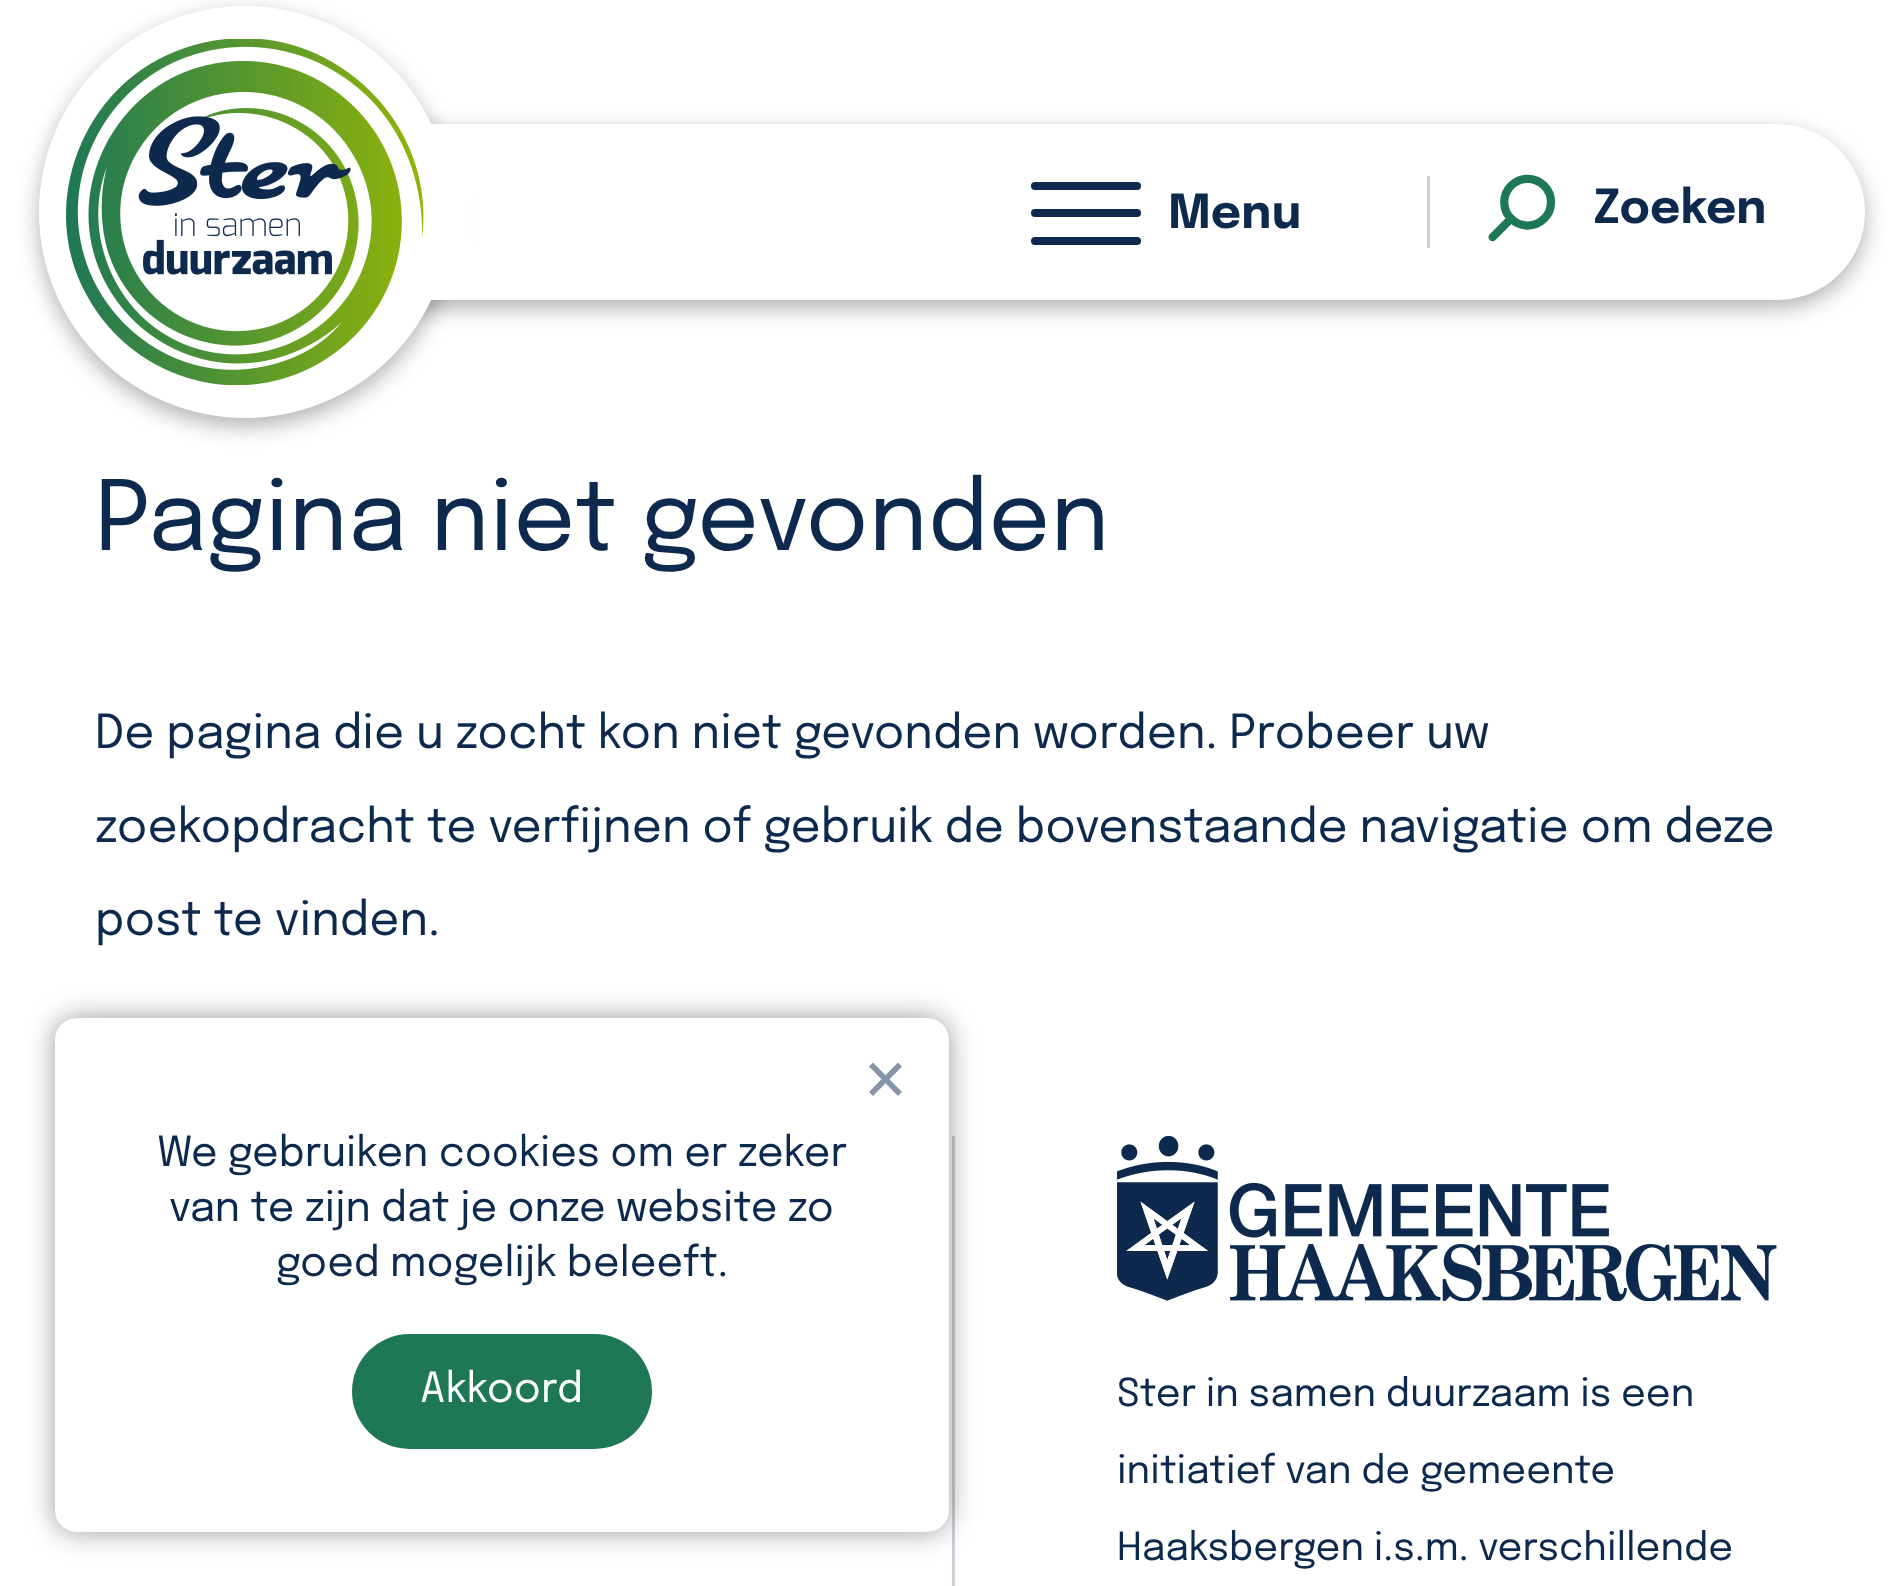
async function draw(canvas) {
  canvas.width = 1902
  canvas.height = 1586
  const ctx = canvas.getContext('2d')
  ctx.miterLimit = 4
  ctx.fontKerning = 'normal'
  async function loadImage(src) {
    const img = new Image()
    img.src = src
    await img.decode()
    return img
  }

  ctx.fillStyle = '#fff'
  ctx.fillRect(0, 0, 1902, 1586)
  ctx.fillStyle = '#0000004d'
  ctx.filter = 'blur(11px)'
  ctx.beginPath()
  ctx.roundRect(176, 132, 1689, 176, 88)
  ctx.fill()
  ctx.filter = 'none'
  ctx.fillStyle = '#fff'
  ctx.beginPath()
  ctx.roundRect(176, 124, 1689, 176, 88)
  ctx.fill()
  ctx.fillStyle = '#0000004d'
  ctx.filter = 'blur(11px)'
  ctx.beginPath()
  ctx.roundRect(39, 14, 412, 412, 206)
  ctx.fill()
  ctx.filter = 'none'
  ctx.fillStyle = '#fff'
  ctx.beginPath()
  ctx.arc(245, 212, 206, 0, 2 * Math.PI)
  ctx.fill()
  ctx.drawImage(await loadImage('image0.png'), 66, 39, 358, 346)
  ctx.fillRect(431, 124, 40, 176)
  ctx.fillStyle = '#0d294e'
  ctx.beginPath()
  ctx.roundRect(1031, 237, 110, 8, 4)
  ctx.fill()
  ctx.beginPath()
  ctx.roundRect(1031, 182, 110, 8, 4)
  ctx.fill()
  ctx.beginPath()
  ctx.roundRect(1031, 209, 110, 8, 4)
  ctx.fill()
  ctx.font = 'bold 46.75px Epilogue'
  ctx.fillText('Menu', 1168, 228)
  ctx.fillStyle = '#cad0d8'
  ctx.fillRect(1427, 176, 3, 72)
  ctx.drawImage(await loadImage('image1.png'), 1488, 174, 68, 68)
  ctx.fillStyle = '#0d294e'
  ctx.fillText('Zoeken', 1593, 223)
  ctx.font = '96.25px Epilogue'
  ctx.fillText('Pagina niet gevonden', 95, 550)
  ctx.font = '46.75px Epilogue'
  ctx.fillText('De pagina die u zocht kon niet gevonden worden. Probeer uw', 95, 748)
  ctx.fillText('zoekopdracht te verfijnen of gebruik de bovenstaande navigatie om deze', 95, 842)
  ctx.fillText('post te vinden.', 95, 935)
  ctx.fillStyle = '#cad0d8'
  ctx.fillRect(952, 1136, 3, 450)
  ctx.drawImage(await loadImage('image2.png'), 1117, 1136, 660, 165)
  ctx.font = '38.5px Epilogue'
  ctx.fillStyle = '#0d294e'
  ctx.fillText('Ster in samen duurzaam is een', 1117, 1406)
  ctx.fillText('initiatief van de gemeente', 1117, 1483)
  ctx.fillText('Haaksbergen i.s.m. verschillende', 1117, 1560)
  ctx.fillStyle = '#00000066'
  ctx.filter = 'blur(14px)'
  ctx.beginPath()
  ctx.roundRect(55, 1018, 894, 514, 22)
  ctx.fill()
  ctx.filter = 'none'
  ctx.fillStyle = '#fff'
  ctx.beginPath()
  ctx.roundRect(55, 1018, 894, 514, 22)
  ctx.fill()
  ctx.fillStyle = '#8694a7'
  ctx.beginPath()
  ctx.moveTo(898, 1062.5)
  ctx.lineTo(902, 1066.5)
  ctx.lineTo(873, 1096)
  ctx.lineTo(869, 1092)
  ctx.closePath()
  ctx.fill()
  ctx.beginPath()
  ctx.moveTo(869, 1066.5)
  ctx.lineTo(873, 1062.5)
  ctx.lineTo(902, 1092)
  ctx.lineTo(898, 1096)
  ctx.closePath()
  ctx.fill()
  ctx.font = '41.25px Epilogue'
  ctx.fillStyle = '#0d294e'
  ctx.fillText('We gebruiken cookies om er zeker', 157, 1166)
  ctx.fillText('van te zijn dat je onze website zo', 169, 1221)
  ctx.fillText('goed mogelijk beleeft.', 276, 1276)
  ctx.fillStyle = '#1e7855'
  ctx.beginPath()
  ctx.roundRect(352, 1334, 300, 115, 57.5)
  ctx.fill()
  ctx.fillStyle = '#fff'
  ctx.fillText('Akkoord', 420, 1402)
}

draw(document.querySelector('canvas'))
